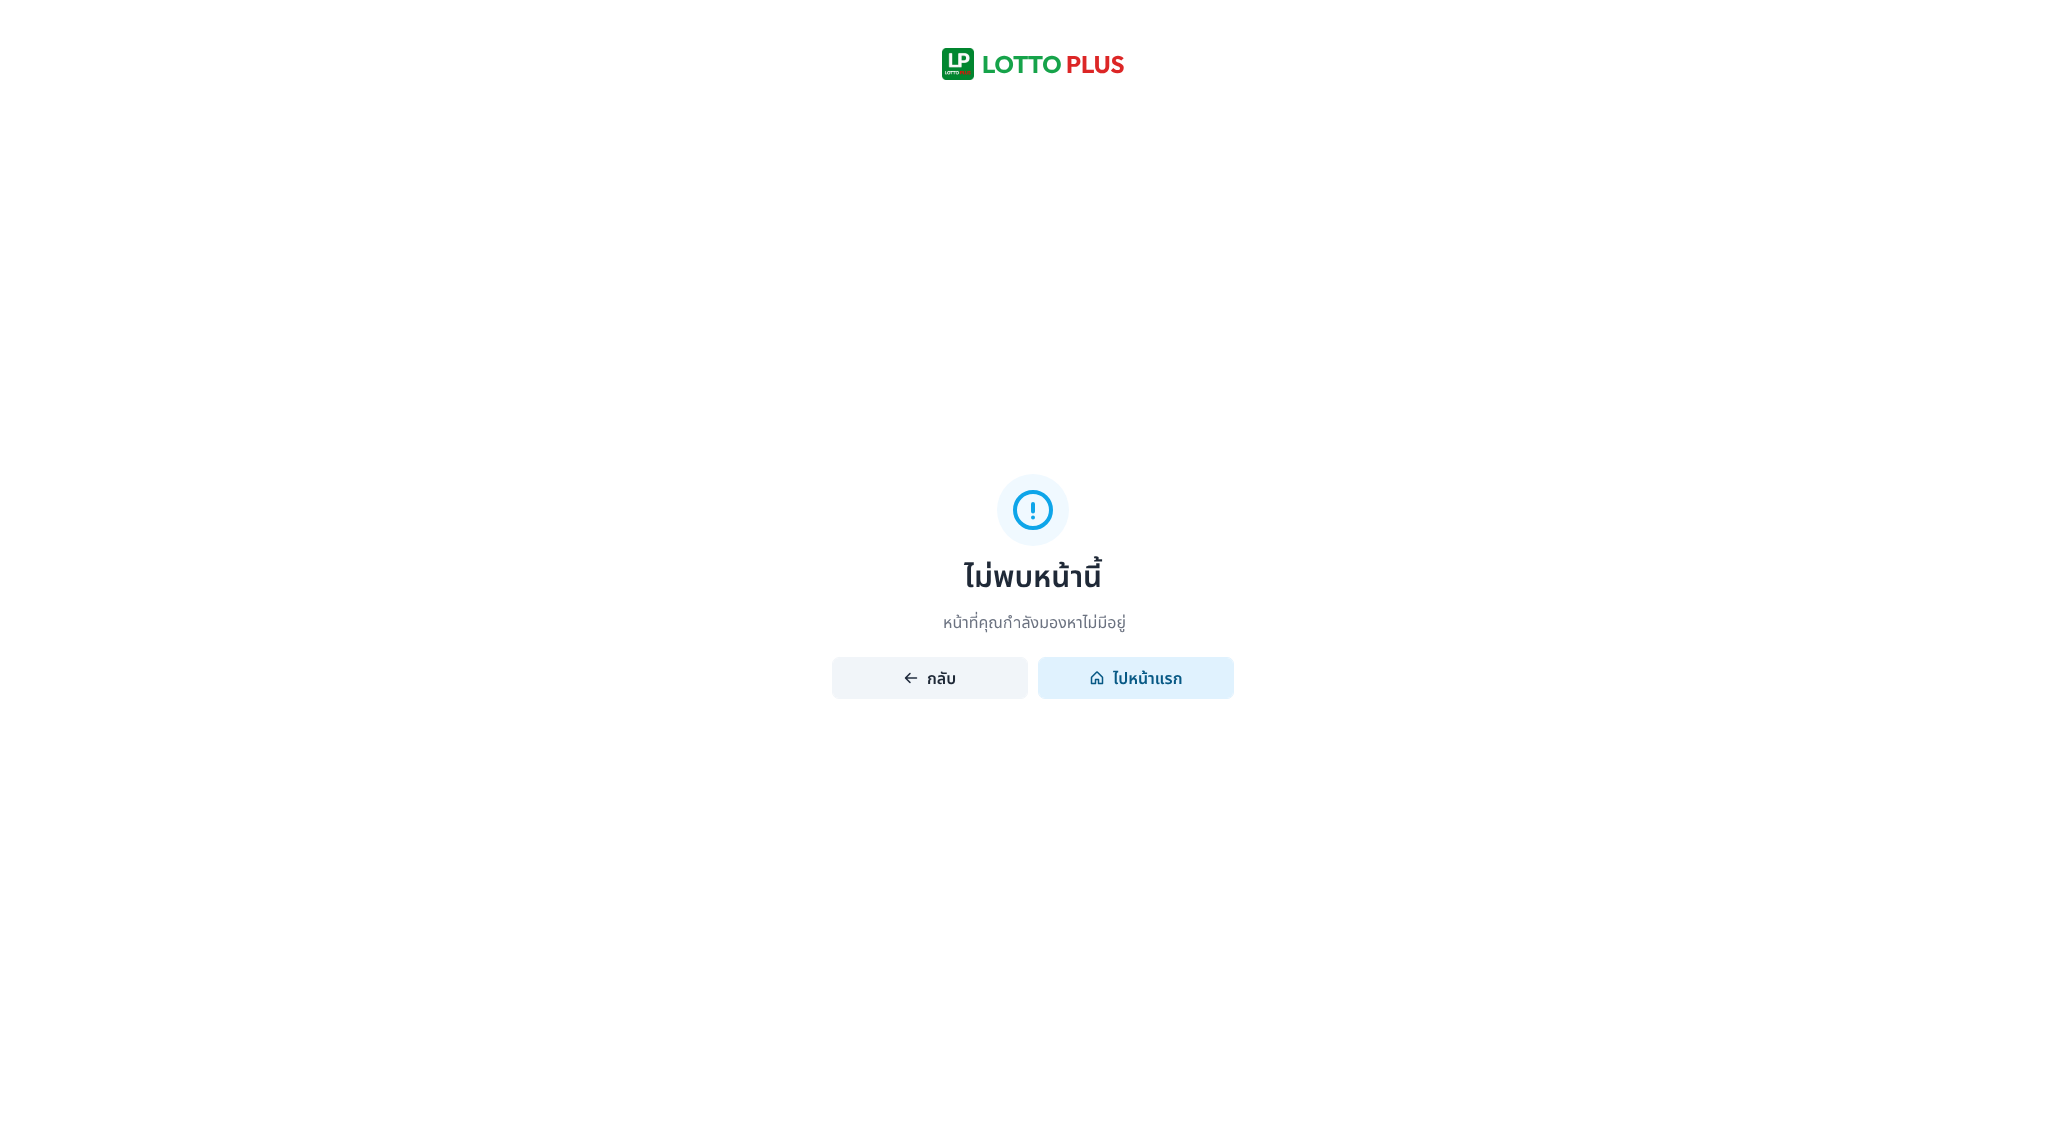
async function draw(canvas) {
  canvas.width = 2066
  canvas.height = 1140
  const ctx = canvas.getContext('2d')
  ctx.miterLimit = 4
  ctx.fontKerning = 'normal'
  async function loadImage(src) {
    const img = new Image()
    img.src = src
    await img.decode()
    return img
  }

  ctx.fillStyle = '#fff'
  ctx.fillRect(0, 0, 2066, 1140)
  ctx.drawImage(await loadImage('image0.png'), 942, 48, 32, 32)
  ctx.font = 'bold 24px Outfit'
  ctx.fillStyle = '#16a34a'
  ctx.fillText('LOTTO', 982, 73)
  ctx.fillStyle = '#dc2626'
  ctx.fillText('PLUS', 1066, 73)
  ctx.fillStyle = '#f0f9ff'
  ctx.beginPath()
  ctx.arc(1033, 510, 36, 0, 2 * Math.PI)
  ctx.fill()
  ctx.beginPath()
  ctx.moveTo(1033, 504)
  ctx.lineTo(1033, 511.5)
  ctx.moveTo(1051, 510)
  ctx.bezierCurveTo(1051, 520, 1043, 528, 1033, 528)
  ctx.bezierCurveTo(1023, 528, 1015, 520, 1015, 510)
  ctx.bezierCurveTo(1015, 500, 1023, 492, 1033, 492)
  ctx.bezierCurveTo(1043, 492, 1051, 500, 1051, 510)
  ctx.closePath()
  ctx.moveTo(1033, 517.5)
  ctx.lineTo(1033, 517.5)
  ctx.closePath()
  ctx.strokeStyle = '#0ea5e9'
  ctx.lineWidth = 4
  ctx.lineCap = 'round'
  ctx.lineJoin = 'round'
  ctx.stroke()
  ctx.font = '600 30px Noto Sans Thai'
  ctx.fillStyle = '#1f2937'
  ctx.fillText('ไม่พบหน้านี้', 964, 587)
  ctx.font = '16px Noto Sans Thai'
  ctx.fillStyle = '#6b7280'
  ctx.fillText('หน้าที่คุณกำลังมองหาไม่มีอยู่', 943, 628)
  ctx.beginPath()
  ctx.roundRect(832.5, 657.5, 195, 41, 6.5)
  ctx.strokeStyle = '#f1f5f9'
  ctx.lineWidth = 1
  ctx.lineJoin = 'miter'
  ctx.stroke()
  ctx.fillStyle = '#f1f5f9'
  ctx.beginPath()
  ctx.roundRect(833, 658, 194, 40, 6)
  ctx.fill()
  ctx.drawImage(await loadImage('image1.png'), 904, 672, 14, 12)
  ctx.font = '600 16px Noto Sans Thai'
  ctx.fillStyle = '#1f2937'
  ctx.fillText('กลับ', 927, 684)
  ctx.beginPath()
  ctx.roundRect(1038.5, 657.5, 195, 41, 6.5)
  ctx.strokeStyle = '#e0f2fe'
  ctx.stroke()
  ctx.fillStyle = '#e0f2fe'
  ctx.beginPath()
  ctx.roundRect(1039, 658, 194, 40, 6)
  ctx.fill()
  ctx.drawImage(await loadImage('image2.png'), 1090, 671, 14, 14)
  ctx.fillStyle = '#075985'
  ctx.fillText('ไปหน้าแรก', 1113, 684)
}

draw(document.querySelector('canvas'))
